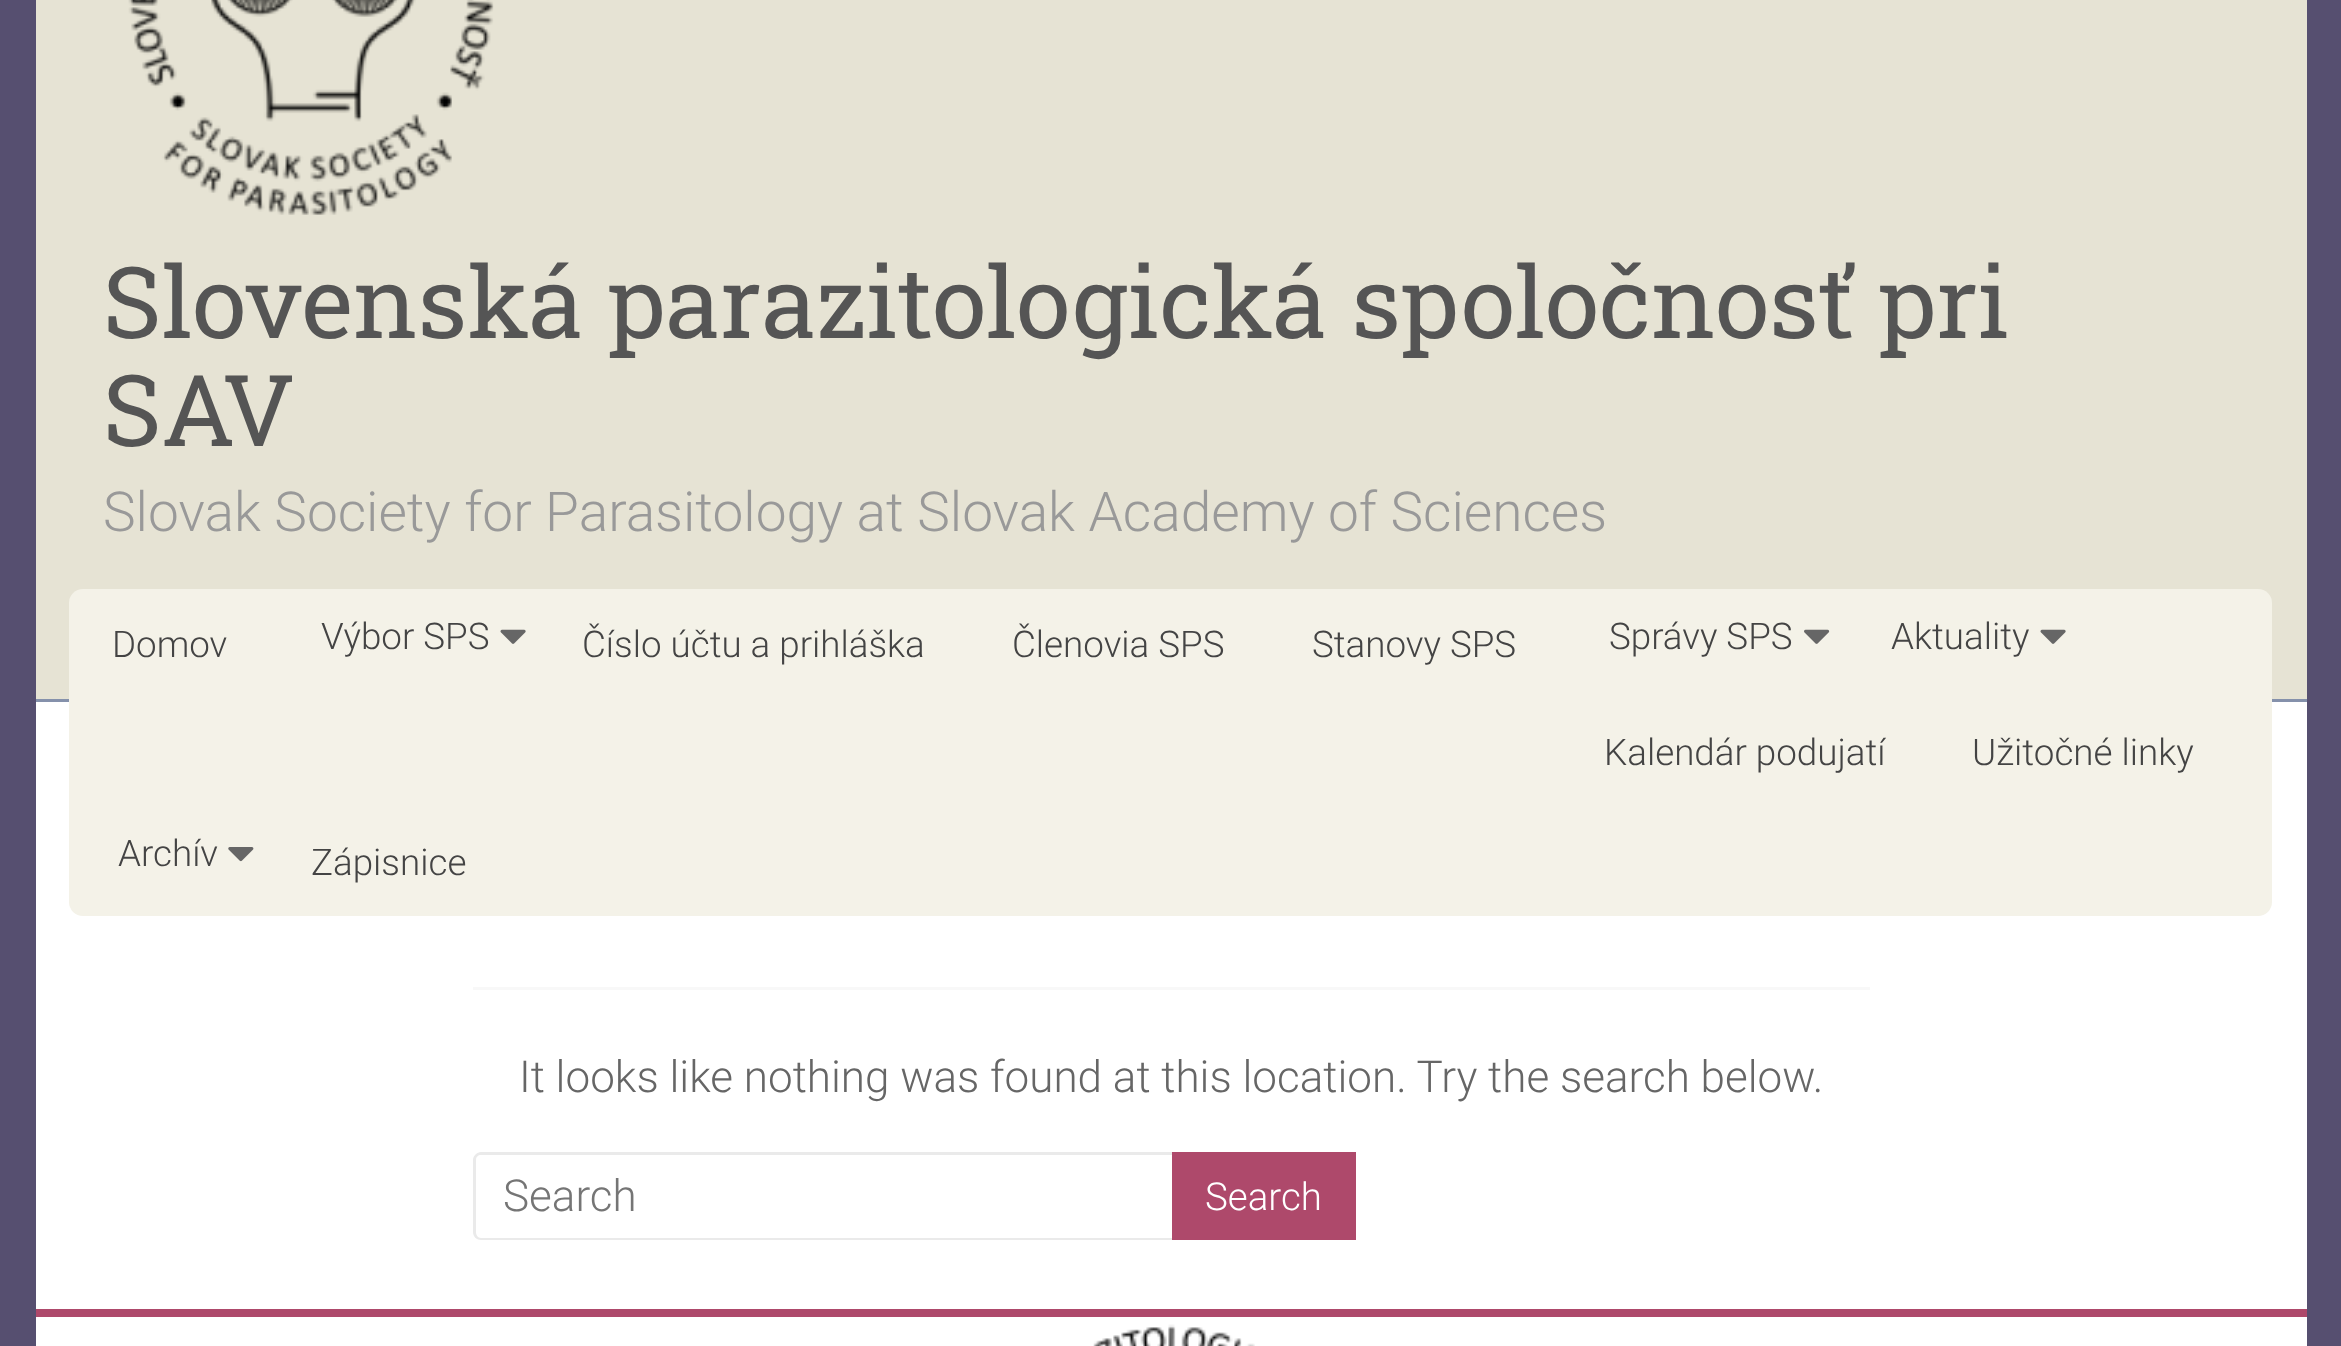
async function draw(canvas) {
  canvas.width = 2341
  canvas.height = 1346
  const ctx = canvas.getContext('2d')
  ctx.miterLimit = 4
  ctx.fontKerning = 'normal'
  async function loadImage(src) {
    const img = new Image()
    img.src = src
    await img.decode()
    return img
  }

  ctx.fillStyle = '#564f70'
  ctx.fillRect(0, 0, 2341, 1346)
  ctx.fillStyle = '#fff'
  ctx.fillRect(36, 702, 2271, 644)
  ctx.fillStyle = '#e6e3d4'
  ctx.fillRect(36, 0, 2271, 699)
  ctx.fillStyle = '#8591ab'
  ctx.fillRect(36, 699, 2271, 3)
  ctx.drawImage(await loadImage('image0.png'), 128, 0, 366, 215)
  ctx.font = '99px Roboto Slab'
  ctx.fillStyle = '#555'
  ctx.fillText('Slovenská parazitologická spoločnosť pri', 103, 338)
  ctx.fillText('SAV', 103, 446)
  ctx.font = '300 55px Roboto'
  ctx.fillStyle = '#999'
  ctx.fillText('Slovak Society for Parasitology at Slovak Academy of Sciences', 103, 531)
  ctx.fillStyle = '#f4f2e8'
  ctx.beginPath()
  ctx.roundRect(69, 589, 2203, 327, 14)
  ctx.fill()
  ctx.font = '300 36.75px Roboto'
  ctx.fillStyle = '#444'
  ctx.fillText('Domov', 112, 657)
  ctx.fillText('Výbor SPS', 321, 649)
  ctx.drawImage(await loadImage('image1.png'), 500, 629, 26, 15)
  ctx.fillText('Číslo účtu a prihláška', 582, 657)
  ctx.fillText('Členovia SPS', 1012, 657)
  ctx.fillText('Stanovy SPS', 1312, 657)
  ctx.fillText('Správy SPS', 1609, 649)
  ctx.drawImage(await loadImage('image2.png'), 1804, 629, 26, 15)
  ctx.fillText('Aktuality', 1891, 649)
  ctx.drawImage(await loadImage('image1.png'), 2040, 629, 26, 15)
  ctx.fillText('Kalendár podujatí', 1604, 765)
  ctx.fillText('Užitočné linky', 1972, 765)
  ctx.fillText('Archív', 118, 866)
  ctx.drawImage(await loadImage('image3.png'), 228, 847, 26, 15)
  ctx.fillText('Zápisnice', 311, 875)
  ctx.fillStyle = '#f8f8f8'
  ctx.fillRect(473, 987, 1397, 3)
  ctx.font = '300 44px Roboto'
  ctx.fillStyle = '#666'
  ctx.fillText('It looks like nothing was found at this location. Try the search below.', 519, 1092)
  ctx.fillStyle = '#eaeaea'
  ctx.beginPath()
  ctx.moveTo(481, 1152)
  ctx.lineTo(1172, 1152)
  ctx.lineTo(1172, 1240)
  ctx.lineTo(481, 1240)
  ctx.bezierCurveTo(477, 1240, 473, 1237, 473, 1232)
  ctx.lineTo(473, 1160)
  ctx.bezierCurveTo(473, 1156, 477, 1152, 481, 1152)
  ctx.closePath()
  ctx.moveTo(481, 1155)
  ctx.lineTo(1172, 1155)
  ctx.lineTo(1172, 1238)
  ctx.lineTo(481, 1238)
  ctx.bezierCurveTo(478, 1238, 476, 1235, 476, 1232)
  ctx.lineTo(476, 1160)
  ctx.bezierCurveTo(476, 1157, 478, 1155, 481, 1155)
  ctx.closePath()
  ctx.fill('evenodd')
  ctx.fillStyle = '#757575'
  ctx.fillText('Search', 503, 1211)
  ctx.fillStyle = '#ae496b'
  ctx.fillRect(1172, 1152, 184, 88)
  ctx.font = '300 38.5px Roboto'
  ctx.fillStyle = '#fff'
  ctx.fillText('Search', 1205, 1210)
  ctx.drawImage(await loadImage('image4.png'), 1093, 1324, 162, 22)
  ctx.fillStyle = '#ae496b'
  ctx.fillRect(36, 1309, 2271, 8)
}

draw(document.querySelector('canvas'))
